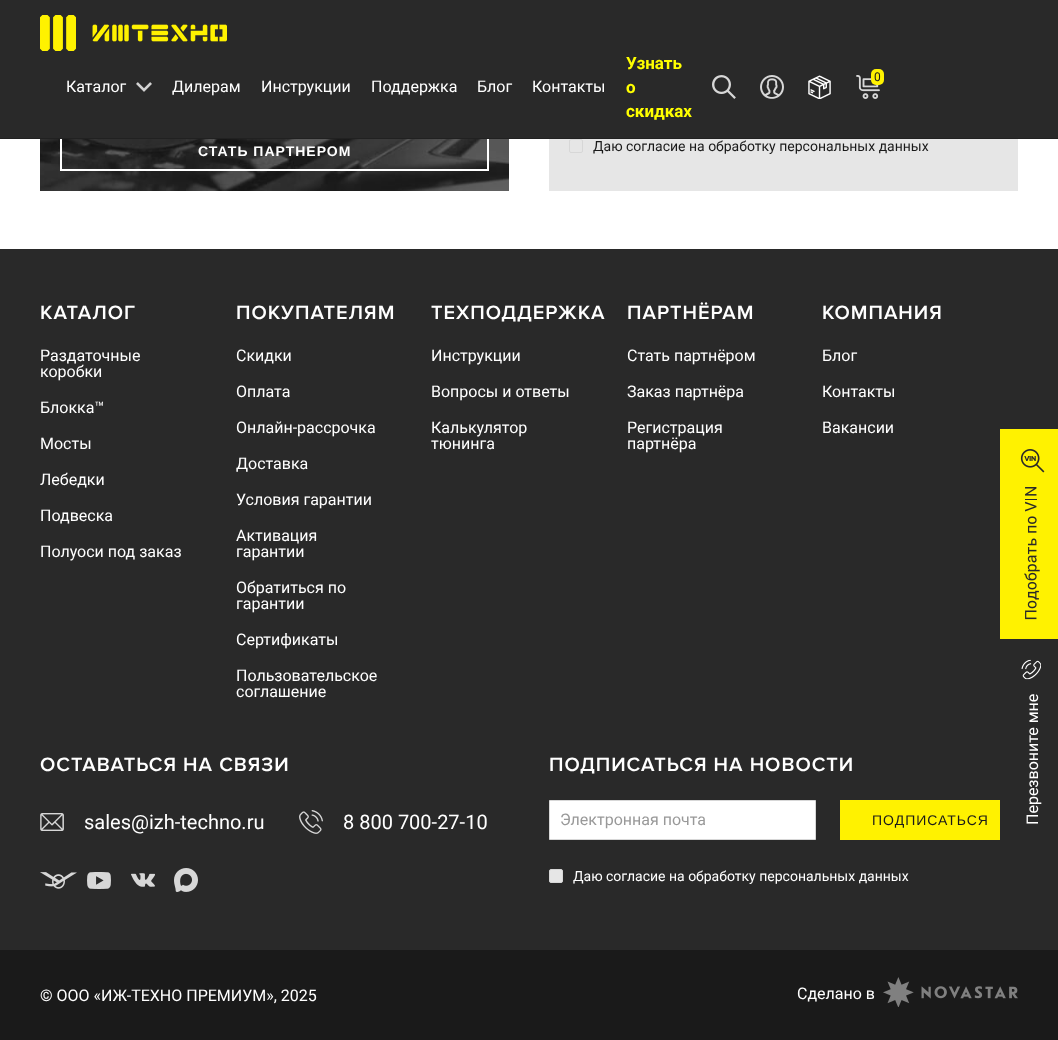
async function draw(canvas) {
  canvas.width = 1058
  canvas.height = 1040
  const ctx = canvas.getContext('2d')
  ctx.miterLimit = 4
  ctx.fontKerning = 'normal'
  async function loadImage(src) {
    const img = new Image()
    img.src = src
    await img.decode()
    return img
  }

  ctx.fillStyle = '#fff'
  ctx.fillRect(0, 0, 1058, 1040)
  ctx.drawImage(await loadImage('image6.png'), 40, 139, 469, 52)
  ctx.strokeStyle = '#fff'
  ctx.lineWidth = 2
  ctx.strokeRect(61, 132, 427, 38)
  ctx.fillStyle = '#292929'
  ctx.fillRect(0, 0, 1058, 138)
  ctx.fillStyle = '#212121'
  ctx.fillRect(0, 138, 1058, 1)
  ctx.drawImage(await loadImage('image0.png'), 40, 15, 187, 36)
  ctx.font = '16px Roboto'
  ctx.fillStyle = '#fff'
  ctx.fillText('Каталог', 66, 92)
  ctx.drawImage(await loadImage('image1.png'), 136, 82, 16, 10)
  ctx.fillText('Дилерам', 172, 92)
  ctx.fillText('Инструкции', 261, 92)
  ctx.fillText('Поддержка', 371, 92)
  ctx.fillText('Блог', 477, 92)
  ctx.fillText('Контакты', 532, 92)
  ctx.font = 'bold 17px Roboto'
  ctx.fillStyle = '#ff0'
  ctx.fillText('Узнать', 626, 69)
  ctx.fillText('о', 626, 93)
  ctx.fillText('скидках', 626, 117)
  ctx.drawImage(await loadImage('image2.png'), 712, 75, 24, 24)
  ctx.drawImage(await loadImage('image3.png'), 760, 75, 24, 24)
  ctx.drawImage(await loadImage('image4.png'), 808, 75, 23, 24)
  ctx.drawImage(await loadImage('image5.png'), 856, 75, 24, 24)
  ctx.fillStyle = '#fff200'
  ctx.beginPath()
  ctx.roundRect(871, 69, 13, 16, 5)
  ctx.fill()
  ctx.font = '12px Roboto'
  ctx.fillStyle = '#1a1a1a'
  ctx.fillText('0', 874, 81)
  ctx.letterSpacing = '1px'
  ctx.font = 'bold 14px Liberation Sans'
  ctx.fillStyle = '#fff'
  ctx.fillText('СТАТЬ ПАРТНЕРОМ', 198, 156)
  ctx.fillStyle = '#e6e6e6'
  ctx.fillRect(549, 139, 469, 52)
  ctx.beginPath()
  ctx.roundRect(569.5, 139.5, 13, 13, 1.5)
  ctx.strokeStyle = '#d7d7d7'
  ctx.lineWidth = 1
  ctx.stroke()
  ctx.letterSpacing = '0px'
  ctx.font = '14px Roboto'
  ctx.fillStyle = '#1a1a1a'
  ctx.fillText('Даю согласие на обработку персональных данных', 593, 151)
  ctx.fillStyle = '#292929'
  ctx.fillRect(0, 249, 1058, 701)
  ctx.letterSpacing = '1px'
  ctx.font = '600 20px Proxima Nova'
  ctx.fillStyle = '#fff'
  ctx.fillText('КАТАЛОГ', 40, 319)
  ctx.letterSpacing = '0px'
  ctx.font = '16px Roboto'
  ctx.fillText('Раздаточные', 40, 361)
  ctx.fillText('коробки', 40, 377)
  ctx.fillText('Блокка™', 40, 413)
  ctx.fillText('Мосты', 40, 449)
  ctx.fillText('Лебедки', 40, 485)
  ctx.fillText('Подвеска', 40, 521)
  ctx.fillText('Полуоси под заказ', 40, 557)
  ctx.letterSpacing = '1px'
  ctx.font = '600 20px Proxima Nova'
  ctx.fillText('ПОКУПАТЕЛЯМ', 236, 319)
  ctx.letterSpacing = '0px'
  ctx.font = '16px Roboto'
  ctx.fillText('Скидки', 236, 361)
  ctx.fillText('Оплата', 236, 397)
  ctx.fillText('Онлайн-рассрочка', 236, 433)
  ctx.fillText('Доставка', 236, 469)
  ctx.fillText('Условия гарантии', 236, 505)
  ctx.fillText('Активация', 236, 541)
  ctx.fillText('гарантии', 236, 557)
  ctx.fillText('Обратиться по', 236, 593)
  ctx.fillText('гарантии', 236, 609)
  ctx.fillText('Сертификаты', 236, 645)
  ctx.fillText('Пользовательское', 236, 681)
  ctx.fillText('соглашение', 236, 697)
  ctx.letterSpacing = '1px'
  ctx.font = '600 20px Proxima Nova'
  ctx.fillText('ТЕХПОДДЕРЖКА', 431, 319)
  ctx.letterSpacing = '0px'
  ctx.font = '16px Roboto'
  ctx.fillText('Инструкции', 431, 361)
  ctx.fillText('Вопросы и ответы', 431, 397)
  ctx.fillText('Калькулятор', 431, 433)
  ctx.fillText('тюнинга', 431, 449)
  ctx.letterSpacing = '1px'
  ctx.font = '600 20px Proxima Nova'
  ctx.fillText('ПАРТНЁРАМ', 627, 319)
  ctx.letterSpacing = '0px'
  ctx.font = '16px Roboto'
  ctx.fillText('Стать партнёром', 627, 361)
  ctx.fillText('Заказ партнёра', 627, 397)
  ctx.fillText('Регистрация', 627, 433)
  ctx.fillText('партнёра', 627, 449)
  ctx.letterSpacing = '1px'
  ctx.font = '600 20px Proxima Nova'
  ctx.fillText('КОМПАНИЯ', 822, 319)
  ctx.letterSpacing = '0px'
  ctx.font = '16px Roboto'
  ctx.fillText('Блог', 822, 361)
  ctx.fillText('Контакты', 822, 397)
  ctx.fillText('Вакансии', 822, 433)
  ctx.letterSpacing = '1px'
  ctx.font = '600 20px Proxima Nova'
  ctx.fillText('ОСТАВАТЬСЯ НА СВЯЗИ', 40, 771)
  ctx.drawImage(await loadImage('image7.png'), 40, 813, 24, 18)
  ctx.letterSpacing = '0px'
  ctx.font = '20px Roboto'
  ctx.fillText('sales@izh-techno.ru', 84, 829)
  ctx.drawImage(await loadImage('image8.png'), 299, 810, 24, 24)
  ctx.fillText('8 800 700-27-10', 343, 829)
  ctx.drawImage(await loadImage('image9.png'), 40, 872, 37, 17)
  ctx.drawImage(await loadImage('image10.png'), 87, 872, 24, 17)
  ctx.drawImage(await loadImage('image11.png'), 131, 873, 24, 14)
  ctx.drawImage(await loadImage('image12.png'), 174, 868, 24, 24)
  ctx.letterSpacing = '1px'
  ctx.font = '600 20px Proxima Nova'
  ctx.fillText('ПОДПИСАТЬСЯ НА НОВОСТИ', 549, 771)
  ctx.beginPath()
  ctx.rect(549.5, 800.5, 266, 39)
  ctx.fill()
  ctx.stroke()
  ctx.letterSpacing = '0px'
  ctx.font = '16px Roboto'
  ctx.fillStyle = '#999'
  ctx.fillText('Электронная почта', 560, 825)
  ctx.fillStyle = '#fff200'
  ctx.fillRect(840, 800, 160, 40)
  ctx.letterSpacing = '1px'
  ctx.font = '14px Liberation Sans'
  ctx.fillStyle = '#1a1a1a'
  ctx.fillText('ПОДПИСАТЬСЯ', 872, 825)
  ctx.fillStyle = '#e6e6e6'
  ctx.beginPath()
  ctx.roundRect(549.5, 869.5, 13, 13, 1.5)
  ctx.fill()
  ctx.stroke()
  ctx.letterSpacing = '0px'
  ctx.font = '14px Roboto'
  ctx.fillStyle = '#fff'
  ctx.fillText('Даю согласие на обработку персональных данных', 573, 881)
  ctx.fillStyle = '#1a1a1a'
  ctx.fillRect(0, 950, 1058, 90)
  ctx.font = '16px Roboto'
  ctx.fillStyle = '#fff'
  ctx.fillText('© ООО «ИЖ-ТЕХНО ПРЕМИУМ», 2025', 40, 1001)
  ctx.fillText('Сделано в', 797, 999)
  ctx.drawImage(await loadImage('image13.png'), 883, 977, 135, 30)
  ctx.drawImage(await loadImage('image14.png'), 1000, 429, 58, 210)
  ctx.drawImage(await loadImage('image15.png'), 1021, 659, 20, 21)
  ctx.save()
  ctx.translate(1038, 825)
  ctx.rotate(-90 * Math.PI / 180)
  ctx.fillText('Перезвоните мне', 0, 0)
  ctx.restore()
}

draw(document.querySelector('canvas'))
